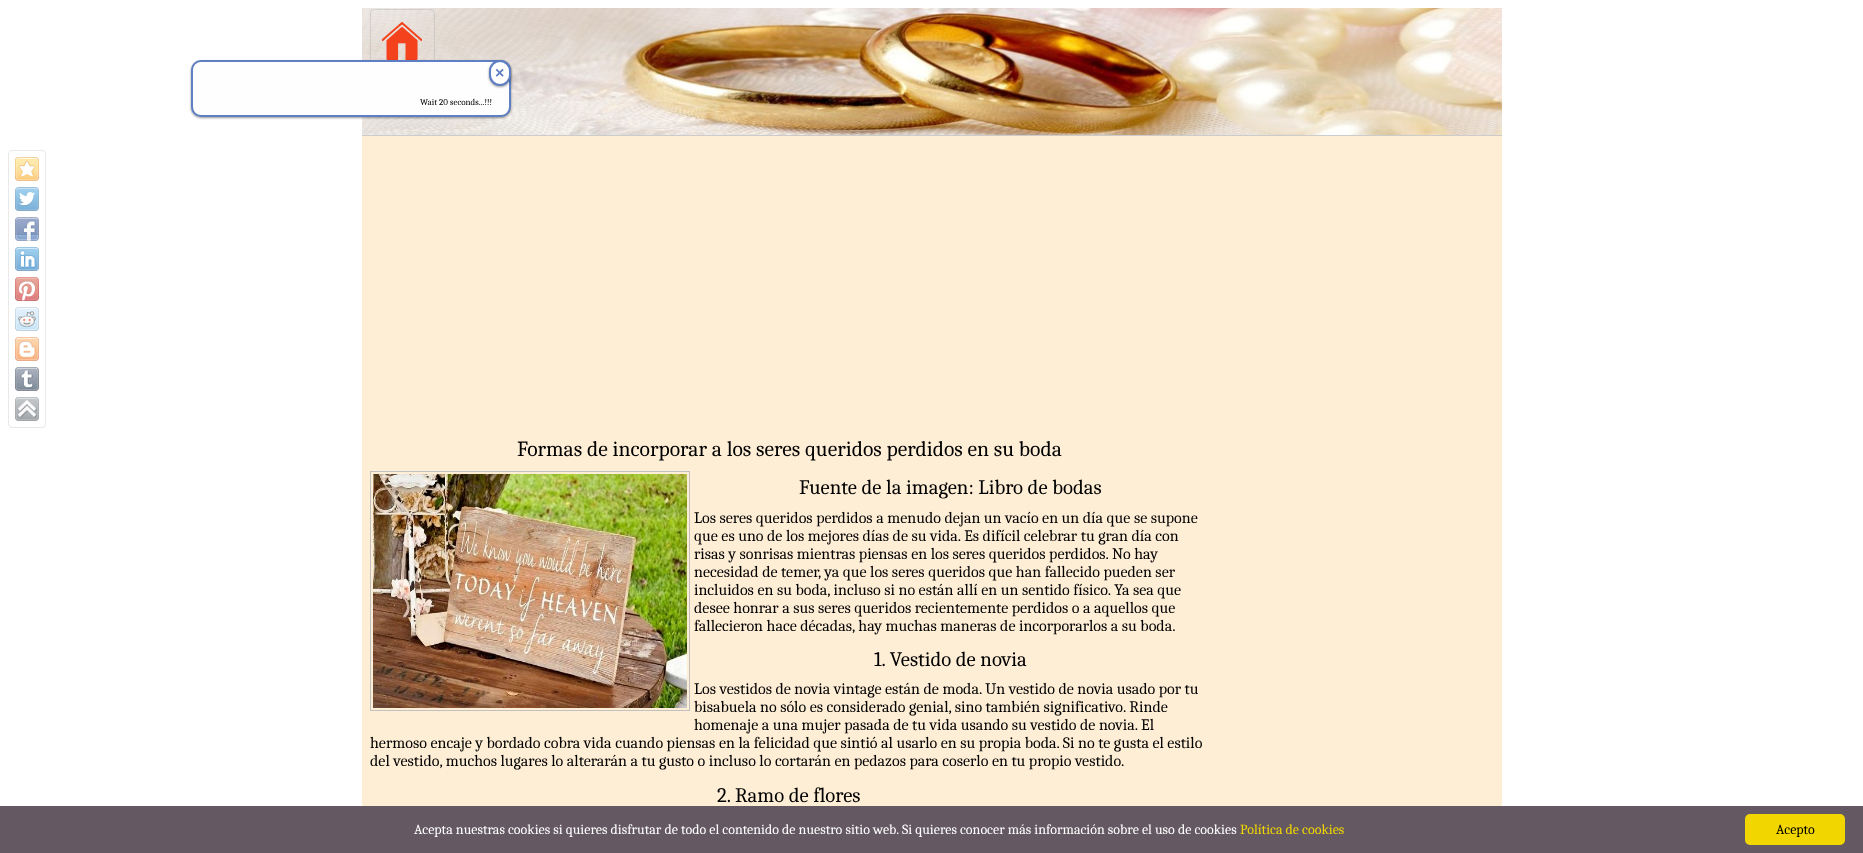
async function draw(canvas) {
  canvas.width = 1863
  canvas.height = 853
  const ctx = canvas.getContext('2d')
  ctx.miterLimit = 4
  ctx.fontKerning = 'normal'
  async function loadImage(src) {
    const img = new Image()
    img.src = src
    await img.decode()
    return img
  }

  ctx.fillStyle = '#fff'
  ctx.fillRect(0, 0, 1863, 853)
  ctx.drawImage(await loadImage('image9.png'), 362, 8, 1140, 127)
  ctx.beginPath()
  ctx.roundRect(370.5, 9.5, 64, 68, 3.5)
  ctx.strokeStyle = '#9e9e9e4d'
  ctx.stroke()
  ctx.drawImage(await loadImage('image10.png'), 382, 22, 40, 38)
  ctx.fillStyle = '#00000066'
  ctx.filter = 'blur(1px)'
  ctx.beginPath()
  ctx.roundRect(191, 61, 320, 57, 10)
  ctx.fill()
  ctx.filter = 'none'
  ctx.fillStyle = '#fefefe'
  ctx.beginPath()
  ctx.roundRect(192, 61, 318, 55, 9)
  ctx.fill()
  ctx.strokeStyle = '#5e7fc3'
  ctx.lineWidth = 2
  ctx.stroke()
  ctx.fillStyle = '#00000066'
  ctx.filter = 'blur(1px)'
  ctx.beginPath()
  ctx.roundRect(489, 61, 22, 26, 11)
  ctx.fill()
  ctx.filter = 'none'
  ctx.fillStyle = '#fff'
  ctx.beginPath()
  ctx.roundRect(490, 61, 20, 24, 10)
  ctx.fill()
  ctx.stroke()
  ctx.font = 'bold 16px Liberation Sans'
  ctx.fillStyle = '#5e7fc3'
  ctx.fillText('×', 495, 78)
  ctx.font = '9px Caladea'
  ctx.fillStyle = '#000'
  ctx.fillText('Wait 20 seconds...!!!', 420, 105)
  ctx.beginPath()
  ctx.roundRect(8.5, 150.5, 37, 277, 3.5)
  ctx.strokeStyle = '#e9e9e9'
  ctx.lineWidth = 1
  ctx.stroke()
  ctx.drawImage(await loadImage('image0.png'), 15, 157, 24, 24)
  ctx.drawImage(await loadImage('image1.png'), 15, 187, 24, 24)
  ctx.drawImage(await loadImage('image2.png'), 15, 217, 24, 24)
  ctx.drawImage(await loadImage('image3.png'), 15, 247, 24, 24)
  ctx.drawImage(await loadImage('image4.png'), 15, 277, 24, 24)
  ctx.drawImage(await loadImage('image5.png'), 15, 307, 24, 24)
  ctx.drawImage(await loadImage('image6.png'), 15, 337, 24, 24)
  ctx.drawImage(await loadImage('image7.png'), 15, 367, 24, 24)
  ctx.drawImage(await loadImage('image8.png'), 15, 397, 24, 24)
  ctx.fillStyle = '#ffeed6'
  ctx.fillRect(362, 136, 1140, 670)
  ctx.fillStyle = '#ccc'
  ctx.fillRect(362, 135, 1140, 1)
  ctx.font = '21.6px Caladea'
  ctx.fillStyle = '#000'
  ctx.fillText('Formas de incorporar a los seres queridos perdidos en su boda', 517, 456)
  ctx.strokeStyle = '#c0c0c0'
  ctx.strokeRect(370.5, 471.5, 319, 239)
  ctx.drawImage(await loadImage('image11.png'), 373, 474, 314, 234)
  ctx.font = '20.75px Caladea'
  ctx.fillText('Fuente de la imagen: Libro de bodas', 799, 494)
  ctx.font = '16px Caladea'
  ctx.fillText('Los seres queridos perdidos a menudo dejan un vacío en un día que se supone', 694, 523)
  ctx.fillText('que es uno de los mejores días de su vida. Es difícil celebrar tu gran día con', 694, 541)
  ctx.fillText('risas y sonrisas mientras piensas en los seres queridos perdidos. No hay', 694, 559)
  ctx.fillText('necesidad de temer, ya que los seres queridos que han fallecido pueden ser', 694, 577)
  ctx.fillText('incluidos en su boda, incluso si no están allí en un sentido físico. Ya sea que', 694, 595)
  ctx.fillText('desee honrar a sus seres queridos recientemente perdidos o a aquellos que', 694, 613)
  ctx.fillText('fallecieron hace décadas, hay muchas maneras de incorporarlos a su boda.', 694, 631)
  ctx.font = '20.75px Caladea'
  ctx.fillText('1. Vestido de novia', 874, 666)
  ctx.font = '16px Caladea'
  ctx.fillText('Los vestidos de novia vintage están de moda. Un vestido de novia usado por tu', 694, 694)
  ctx.fillText('bisabuela no sólo es considerado genial, sino también significativo. Rinde', 694, 712)
  ctx.fillText('homenaje a una mujer pasada de tu vida usando su vestido de novia. El', 694, 730)
  ctx.fillText('hermoso encaje y bordado cobra vida cuando piensas en la felicidad que sintió al usarlo en su propia boda. Si no te gusta el estilo', 370, 748)
  ctx.fillText('del vestido, muchos lugares lo alterarán a tu gusto o incluso lo cortarán en pedazos para coserlo en tu propio vestido.', 370, 766)
  ctx.font = '20.75px Caladea'
  ctx.fillText('2. Ramo de flores', 717, 802)
  ctx.fillStyle = '#645862'
  ctx.fillRect(0, 806, 1863, 47)
  ctx.font = '14px Caladea'
  ctx.fillStyle = '#fff'
  ctx.fillText('Acepta nuestras cookies si quieres disfrutar de todo el contenido de nuestro sitio web. Si quieres conocer más información sobre el uso de cookies', 414, 834)
  ctx.fillStyle = '#f1d600'
  ctx.fillText('Política de cookies', 1240, 834)
  ctx.beginPath()
  ctx.roundRect(1745, 814, 100, 31, 5)
  ctx.fill()
  ctx.fillStyle = '#000'
  ctx.fillText('Acepto', 1776, 834)
}

draw(document.querySelector('canvas'))
